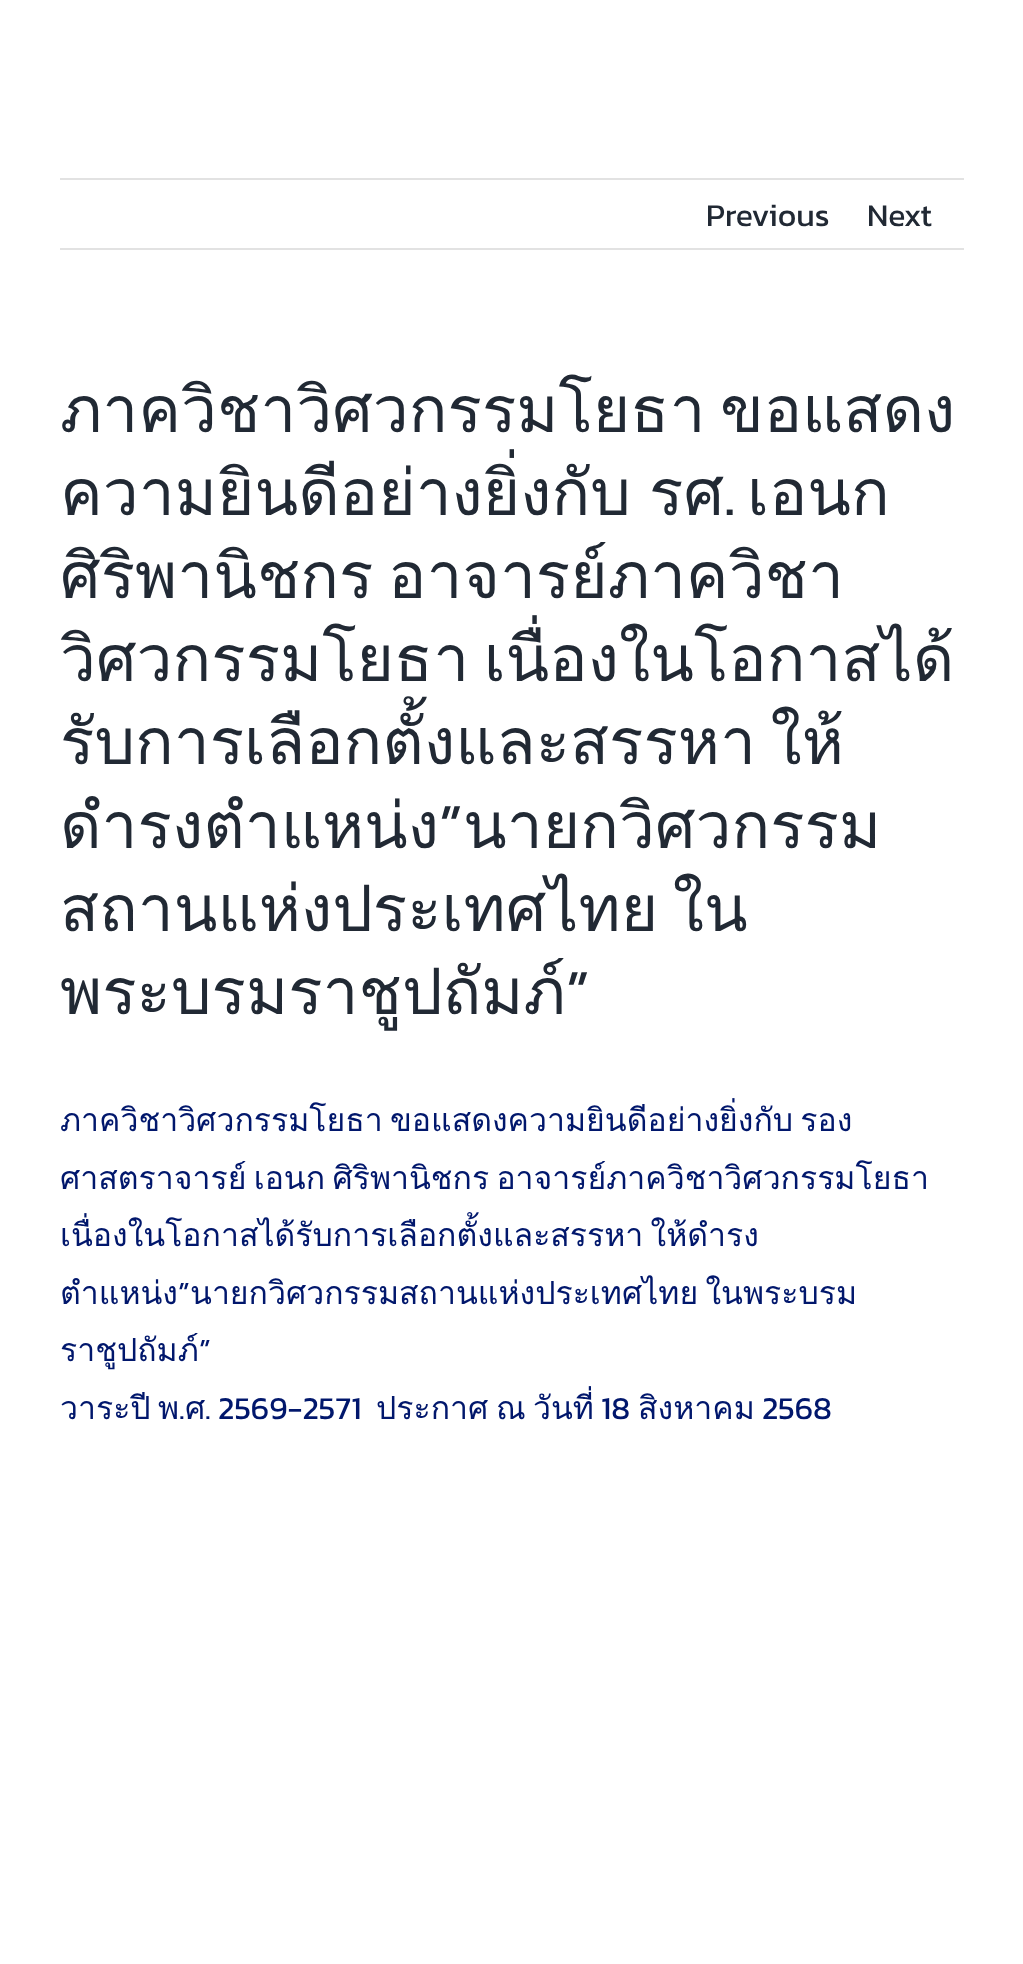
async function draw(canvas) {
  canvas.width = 1023
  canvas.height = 1964
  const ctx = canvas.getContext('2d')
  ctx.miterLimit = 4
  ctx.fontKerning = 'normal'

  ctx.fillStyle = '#fff'
  ctx.fillRect(0, 0, 1023, 1964)
  ctx.fillStyle = '#e2e2e2'
  ctx.fillRect(60, 178, 904, 2)
  ctx.fillRect(60, 248, 904, 2)
  ctx.font = '32px Kanit'
  ctx.fillStyle = '#212934'
  ctx.fillText('Previous', 706, 226)
  ctx.fillText('Next', 867, 226)
  ctx.wordSpacing = '-7px'
  ctx.font = '64px Loma'
  ctx.fillText('ภาควิชาวิศวกรรมโยธา ขอแสดง', 60, 432)
  ctx.wordSpacing = '-3.5px'
  ctx.fillText('ความยินดีอย่างยิ่งกับ รศ', 60, 515)
  ctx.wordSpacing = '0px'
  ctx.font = '64px Kanit'
  ctx.fillText('.', 724, 515)
  ctx.font = '64px Loma'
  ctx.fillText('เอนก', 747, 515)
  ctx.wordSpacing = '-7px'
  ctx.fillText('ศิริพานิชกร อาจารย์ภาควิชา', 60, 598)
  ctx.fillText('วิศวกรรมโยธา เนื่องในโอกาสได้', 60, 681)
  ctx.fillText('รับการเลือกตั้งและสรรหา ให้', 60, 764)
  ctx.wordSpacing = '0px'
  ctx.fillText('ดำรงตำแหน่ง', 60, 848)
  ctx.font = '64px Kanit'
  ctx.fillText('”', 439, 848)
  ctx.font = '64px Loma'
  ctx.fillText('นายกวิศวกรรม', 463, 848)
  ctx.wordSpacing = '-7px'
  ctx.fillText('สถานแห่งประเทศไทย ใน', 60, 931)
  ctx.wordSpacing = '0px'
  ctx.fillText('พระบรมราชูปถัมภ์', 60, 1014)
  ctx.font = '64px Kanit'
  ctx.fillText('”', 566, 1014)
  ctx.wordSpacing = '-3.5px'
  ctx.font = '32px Loma'
  ctx.fillStyle = '#01176c'
  ctx.fillText('ภาควิชาวิศวกรรมโยธา ขอแสดงความยินดีอย่างยิ่งกับ รอง', 60, 1131)
  ctx.fillText('ศาสตราจารย์ เอนก ศิริพานิชกร อาจารย์ภาควิชาวิศวกรรมโยธา', 60, 1189)
  ctx.fillText('เนื่องในโอกาสได้รับการเลือกตั้งและสรรหา ให้ดำรง', 60, 1246)
  ctx.wordSpacing = '0px'
  ctx.fillText('ตำแหน่ง', 60, 1304)
  ctx.font = '32px Kanit'
  ctx.fillText('”', 178, 1304)
  ctx.wordSpacing = '-3.5px'
  ctx.font = '32px Loma'
  ctx.fillText('นายกวิศวกรรมสถานแห่งประเทศไทย ในพระบรม', 190, 1304)
  ctx.wordSpacing = '0px'
  ctx.fillText('ราชูปถัมภ์', 60, 1361)
  ctx.font = '32px Kanit'
  ctx.fillText('”', 199, 1361)
  ctx.font = '32px Loma'
  ctx.fillText('วาระปี', 60, 1419)
  ctx.fillText('พ', 158, 1419)
  ctx.font = '32px Kanit'
  ctx.fillText('.', 179, 1419)
  ctx.font = '32px Loma'
  ctx.fillText('ศ', 185, 1419)
  ctx.font = '32px Kanit'
  ctx.fillText('. 2569-2571', 205, 1419)
  ctx.font = '32px Loma'
  ctx.fillText('ประกาศ', 376, 1419)
  ctx.fillText('ณ', 496, 1419)
  ctx.fillText('วันที่', 533, 1419)
  ctx.font = '32px Kanit'
  ctx.fillText('18', 601, 1419)
  ctx.font = '32px Loma'
  ctx.fillText('สิงหาคม', 638, 1419)
  ctx.font = '32px Kanit'
  ctx.fillText('2568', 762, 1419)
}

draw(document.querySelector('canvas'))
